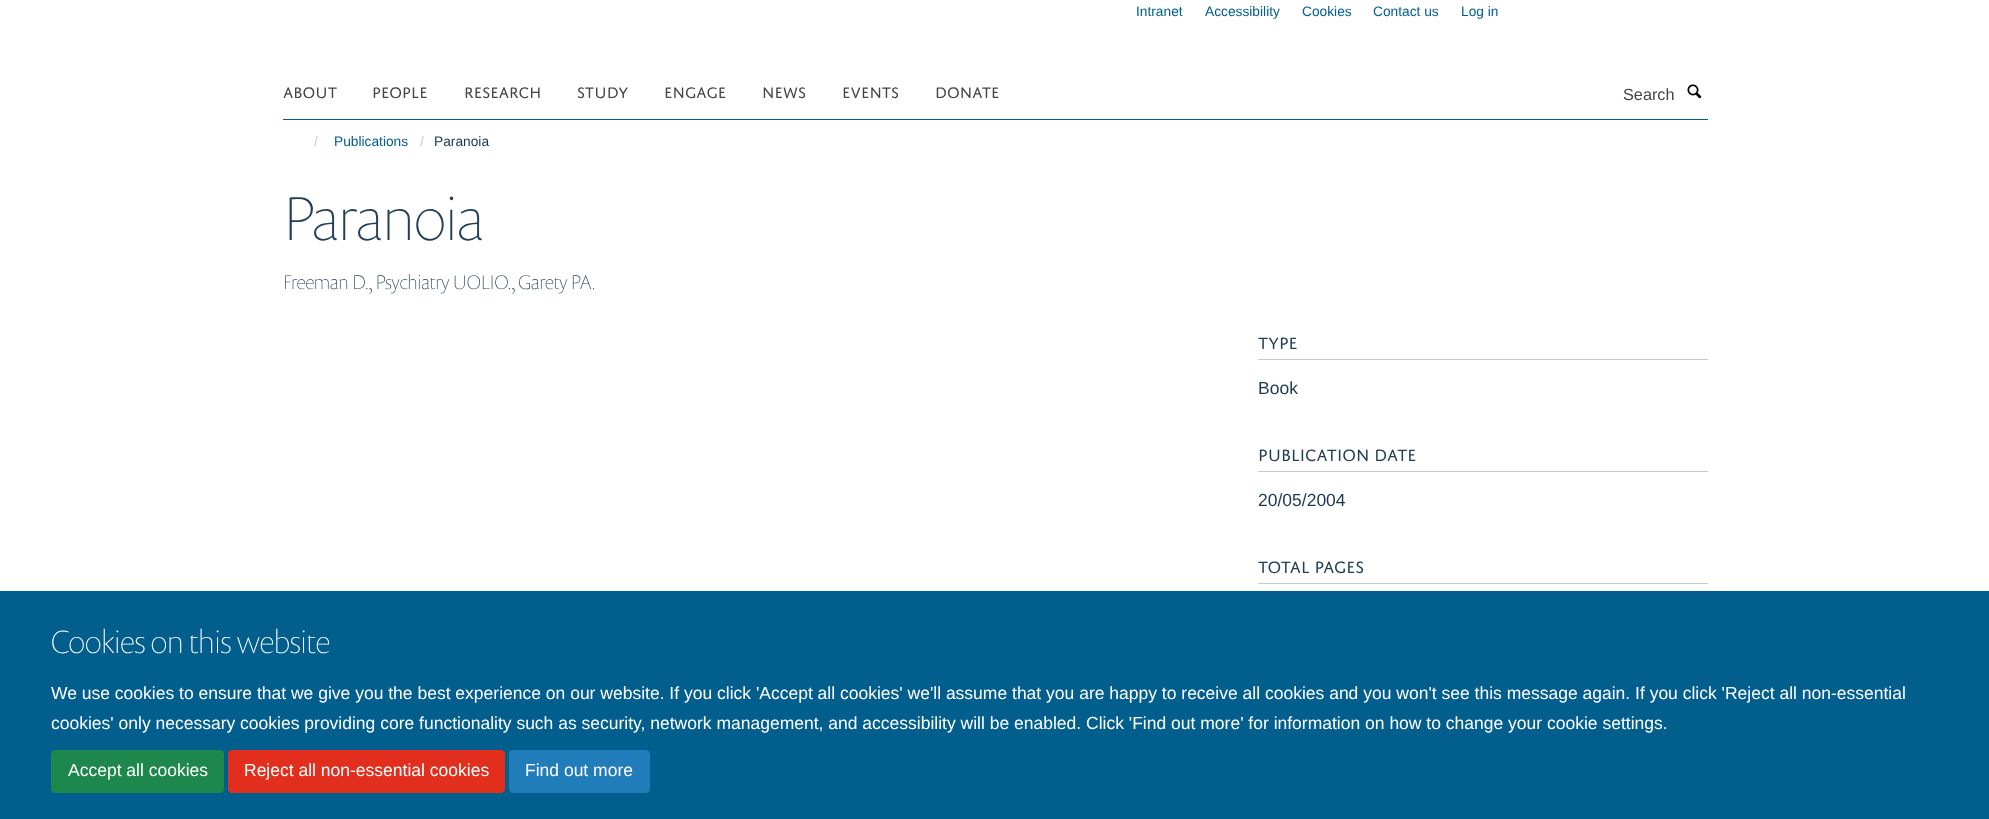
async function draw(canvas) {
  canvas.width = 1989
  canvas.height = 819
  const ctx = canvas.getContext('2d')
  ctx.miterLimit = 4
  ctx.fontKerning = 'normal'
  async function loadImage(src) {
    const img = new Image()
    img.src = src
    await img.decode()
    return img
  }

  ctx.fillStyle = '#fff'
  ctx.fillRect(0, 0, 1989, 819)
  ctx.font = '13.75px Liberation Sans'
  ctx.fillStyle = '#015e8d'
  ctx.fillText('Intranet', 1136, 16)
  ctx.fillText('Accessibility', 1205, 16)
  ctx.fillText('Cookies', 1302, 16)
  ctx.fillText('Contact us', 1373, 16)
  ctx.fillText('Log in', 1461, 16)
  ctx.fillRect(283, 119, 1425, 1)
  ctx.font = '16.25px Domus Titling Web'
  ctx.fillStyle = '#444'
  ctx.fillText('ABOUT', 283, 98)
  ctx.fillText('PEOPLE', 372, 98)
  ctx.fillText('RESEARCH', 464, 98)
  ctx.fillText('STUDY', 577, 98)
  ctx.fillText('ENGAGE', 664, 98)
  ctx.fillText('NEWS', 762, 98)
  ctx.fillText('EVENTS', 842, 98)
  ctx.fillText('DONATE', 935, 98)
  ctx.font = '16.25px Liberation Sans'
  ctx.fillText('Search', 1623, 100)
  ctx.drawImage(await loadImage('image0.png'), 1687, 84, 15, 15)
  ctx.font = '13.75px Liberation Sans'
  ctx.fillStyle = '#ccc'
  ctx.fillText('/', 314, 146)
  ctx.fillStyle = '#015e8d'
  ctx.fillText('Publications', 334, 146)
  ctx.fillStyle = '#ccc'
  ctx.fillText('/', 420, 146)
  ctx.fillStyle = '#1d3850'
  ctx.fillText('Paranoia', 434, 146)
  ctx.font = '100 62.5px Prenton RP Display'
  ctx.fillStyle = '#203e58'
  ctx.fillText('Paranoia', 283, 240)
  ctx.font = '100 20px Prenton RP Display'
  ctx.fillText('Freeman D., Psychiatry UOLIO., Garety PA.', 283, 289)
  ctx.fillStyle = '#c6cacf'
  ctx.fillRect(1258, 359, 450, 1)
  ctx.font = '17.5px Domus Titling Web'
  ctx.fillStyle = '#203e58'
  ctx.fillText('TYPE', 1258, 349)
  ctx.font = '17.5px Liberation Sans'
  ctx.fillStyle = '#1d3850'
  ctx.fillText('Book', 1258, 394)
  ctx.fillStyle = '#c6cacf'
  ctx.fillRect(1258, 471, 450, 1)
  ctx.font = '17.5px Domus Titling Web'
  ctx.fillStyle = '#203e58'
  ctx.fillText('PUBLICATION DATE', 1258, 461)
  ctx.font = '17.5px Liberation Sans'
  ctx.fillStyle = '#1d3850'
  ctx.fillText('20/05/2004', 1258, 506)
  ctx.fillStyle = '#c6cacf'
  ctx.fillRect(1258, 583, 450, 1)
  ctx.font = '17.5px Domus Titling Web'
  ctx.fillStyle = '#203e58'
  ctx.fillText('TOTAL PAGES', 1258, 573)
  ctx.fillStyle = '#015e8d'
  ctx.fillRect(0, 591, 1989, 228)
  ctx.font = '100 32.5px Prenton RP Display'
  ctx.fillStyle = '#fff'
  ctx.fillText('Cookies on this website', 51, 653)
  ctx.font = '17.5px Liberation Sans'
  ctx.fillText('We use cookies to ensure that we give you the best experience on our website. If you click \'Accept all cookies\' we\'ll assume that you are happy to receive all cookies and you won\'t see this message again. If you click \'Reject all non-essential', 51, 699)
  ctx.fillText('cookies\' only necessary cookies providing core functionality such as security, network management, and accessibility will be enabled. Click \'Find out more\' for information on how to change your cookie settings.', 51, 729)
  ctx.fillStyle = '#1e874b'
  ctx.beginPath()
  ctx.roundRect(51.5, 750.5, 172, 42, 3.5)
  ctx.fill()
  ctx.strokeStyle = '#1e874b'
  ctx.stroke()
  ctx.fillStyle = '#fff'
  ctx.fillText('Accept all cookies', 68, 776)
  ctx.fillStyle = '#e22e1c'
  ctx.beginPath()
  ctx.roundRect(228.5, 750.5, 276, 42, 3.5)
  ctx.fill()
  ctx.strokeStyle = '#e22e1c'
  ctx.stroke()
  ctx.fillStyle = '#fff'
  ctx.fillText('Reject all non-essential cookies', 244, 776)
  ctx.fillStyle = '#217cba'
  ctx.beginPath()
  ctx.roundRect(509.5, 750.5, 140, 42, 3.5)
  ctx.fill()
  ctx.strokeStyle = '#217cba'
  ctx.stroke()
  ctx.fillStyle = '#fff'
  ctx.fillText('Find out more', 525, 776)
}

draw(document.querySelector('canvas'))
